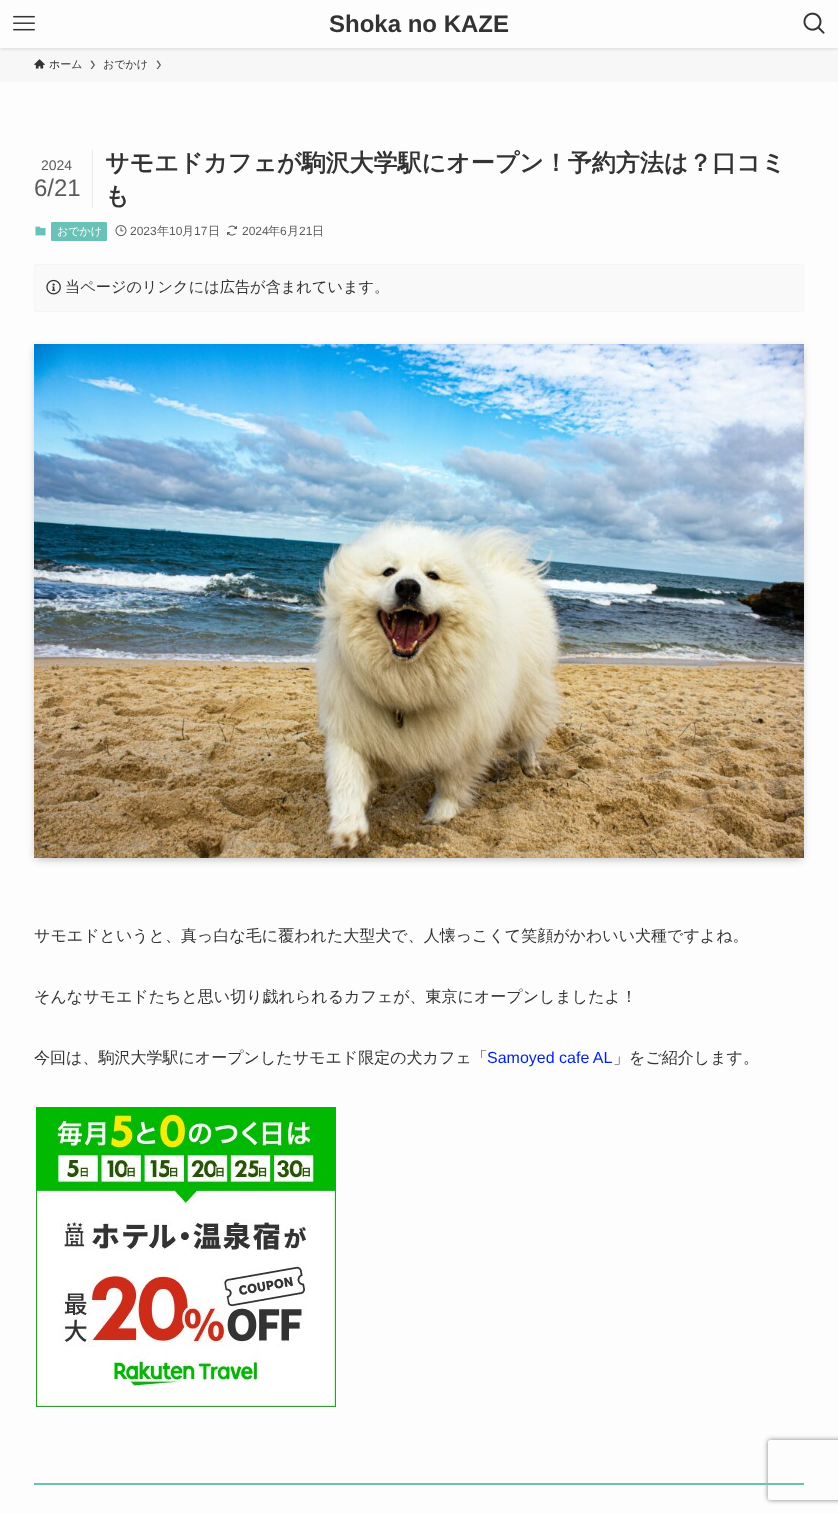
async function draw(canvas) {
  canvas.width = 838
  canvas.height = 1514
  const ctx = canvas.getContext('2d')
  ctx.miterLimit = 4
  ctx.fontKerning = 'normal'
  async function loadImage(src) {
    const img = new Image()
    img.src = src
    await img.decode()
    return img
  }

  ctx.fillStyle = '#fdfdfd'
  ctx.fillRect(0, 0, 838, 1514)
  ctx.fillStyle = '#f7f7f7'
  ctx.fillRect(0, 48, 838, 34)
  ctx.save()
  ctx.beginPath()
  ctx.rect(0, 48, 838, 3)
  ctx.clip()
  ctx.fillStyle = '#0000001f'
  ctx.filter = 'blur(2px)'
  ctx.beginPath()
  ctx.rect(0, 1, 838, 48)
  ctx.fill()
  ctx.filter = 'none'
  ctx.restore()
  ctx.drawImage(await loadImage('image0.png'), 13, 15, 22, 16)
  ctx.font = 'bold 24px Liberation Sans'
  ctx.fillStyle = '#333'
  ctx.fillText('Shoka no KAZE', 329, 32)
  ctx.drawImage(await loadImage('image1.png'), 803, 12, 22, 22)
  ctx.drawImage(await loadImage('image2.png'), 34, 59, 11, 10)
  ctx.font = '500 11px WenQuanYi Zen Hei'
  ctx.fillText('ホーム', 49, 68)
  ctx.fillStyle = '#5a5a5a'
  ctx.beginPath()
  ctx.moveTo(92, 60.5)
  ctx.lineTo(90.5, 61)
  ctx.lineTo(93.5, 65)
  ctx.lineTo(90.5, 69)
  ctx.lineTo(92, 69)
  ctx.lineTo(95, 65)
  ctx.closePath()
  ctx.fill()
  ctx.fillStyle = '#333'
  ctx.fillText('おでかけ', 103, 68)
  ctx.fillStyle = '#5a5a5a'
  ctx.beginPath()
  ctx.moveTo(158, 60.5)
  ctx.lineTo(156.5, 61)
  ctx.lineTo(159.5, 65)
  ctx.lineTo(156.5, 69)
  ctx.lineTo(158, 69)
  ctx.lineTo(161, 65)
  ctx.closePath()
  ctx.fill()
  ctx.fillStyle = '#e8e8e8'
  ctx.fillRect(92, 150, 1, 58)
  ctx.font = '14px Liberation Sans'
  ctx.fillStyle = '#5b5b5b'
  ctx.fillText('2024', 41, 170)
  ctx.font = '24px Liberation Sans'
  ctx.fillText('6/21', 34, 196)
  ctx.font = 'bold 24px WenQuanYi Zen Hei'
  ctx.fillStyle = '#333'
  ctx.fillText('サモエドカフェが駒沢大学駅にオープン！予約方法は？口コミ', 105, 171)
  ctx.fillText('も', 105, 204)
  ctx.drawImage(await loadImage('image3.png'), 35, 226, 11, 10)
  ctx.fillStyle = '#6ac1b7'
  ctx.beginPath()
  ctx.roundRect(51, 222, 56, 19, 1)
  ctx.fill()
  ctx.font = '500 11px WenQuanYi Zen Hei'
  ctx.fillStyle = '#fff'
  ctx.fillText('おでかけ', 57, 235)
  ctx.drawImage(await loadImage('image4.png'), 115, 225, 12, 12)
  ctx.font = '12px Liberation Sans'
  ctx.fillStyle = '#5b5b5b'
  ctx.fillText('2023', 130, 235)
  ctx.font = '500 12px WenQuanYi Zen Hei'
  ctx.fillText('年', 157, 235)
  ctx.font = '12px Liberation Sans'
  ctx.fillText('10', 169, 235)
  ctx.font = '500 12px WenQuanYi Zen Hei'
  ctx.fillText('月', 182, 235)
  ctx.font = '12px Liberation Sans'
  ctx.fillText('17', 194, 235)
  ctx.font = '500 12px WenQuanYi Zen Hei'
  ctx.fillText('日', 208, 235)
  ctx.drawImage(await loadImage('image5.png'), 227, 225, 10, 11)
  ctx.font = '12px Liberation Sans'
  ctx.fillText('2024', 242, 235)
  ctx.font = '500 12px WenQuanYi Zen Hei'
  ctx.fillText('年', 268, 235)
  ctx.font = '12px Liberation Sans'
  ctx.fillText('6', 280, 235)
  ctx.font = '500 12px WenQuanYi Zen Hei'
  ctx.fillText('月', 287, 235)
  ctx.font = '12px Liberation Sans'
  ctx.fillText('21', 299, 235)
  ctx.font = '500 12px WenQuanYi Zen Hei'
  ctx.fillText('日', 312, 235)
  ctx.fillStyle = '#f9f9f9'
  ctx.beginPath()
  ctx.roundRect(34.5, 264.5, 769, 47, 0.5)
  ctx.fill()
  ctx.strokeStyle = '#f5f5f5'
  ctx.stroke()
  ctx.drawImage(await loadImage('image6.png'), 46, 279, 15, 16)
  ctx.font = '500 15.2px WenQuanYi Zen Hei'
  ctx.fillStyle = '#333'
  ctx.fillText('当ページのリンクには広告が含まれています。', 65, 292)
  ctx.fillStyle = '#00000033'
  ctx.filter = 'blur(4px)'
  ctx.beginPath()
  ctx.rect(38, 352, 762, 506)
  ctx.fill()
  ctx.filter = 'none'
  ctx.fillStyle = '#0000001a'
  ctx.filter = 'blur(4px)'
  ctx.beginPath()
  ctx.rect(34, 346, 770, 514)
  ctx.fill()
  ctx.filter = 'none'
  ctx.drawImage(await loadImage('image7.png'), 34, 344, 770, 514)
  ctx.font = '500 16px WenQuanYi Zen Hei'
  ctx.fillStyle = '#333'
  ctx.fillText('サモエドというと、真っ白な毛に覆われた大型犬で、人懐っこくて笑顔がかわいい犬種ですよね。', 34, 941)
  ctx.fillText('そんなサモエドたちと思い切り戯れられるカフェが、東京にオープンしましたよ！', 34, 1002)
  ctx.fillText('今回は、駒沢大学駅にオープンしたサモエド限定の犬カフェ「', 34, 1063)
  ctx.font = '16px Liberation Sans'
  ctx.fillStyle = '#001fea'
  ctx.fillText('Samoyed cafe AL', 487, 1063)
  ctx.font = '500 16px WenQuanYi Zen Hei'
  ctx.fillStyle = '#333'
  ctx.fillText('」をご紹介します。', 613, 1063)
  ctx.drawImage(await loadImage('image8.png'), 36, 1107, 300, 300)
  ctx.save()
  ctx.beginPath()
  ctx.moveTo(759, 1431)
  ctx.lineTo(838, 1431)
  ctx.lineTo(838, 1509)
  ctx.lineTo(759, 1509)
  ctx.closePath()
  ctx.moveTo(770, 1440)
  ctx.lineTo(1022, 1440)
  ctx.bezierCurveTo(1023, 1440, 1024, 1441, 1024, 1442)
  ctx.lineTo(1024, 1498)
  ctx.bezierCurveTo(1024, 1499, 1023, 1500, 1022, 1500)
  ctx.lineTo(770, 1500)
  ctx.bezierCurveTo(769, 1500, 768, 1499, 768, 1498)
  ctx.lineTo(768, 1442)
  ctx.bezierCurveTo(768, 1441, 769, 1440, 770, 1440)
  ctx.closePath()
  ctx.clip('evenodd')
  ctx.fillStyle = '#808080'
  ctx.filter = 'blur(2.5px)'
  ctx.beginPath()
  ctx.roundRect(768, 1440, 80, 60, 2)
  ctx.fill()
  ctx.filter = 'none'
  ctx.restore()
  ctx.fillStyle = '#6ac1b7'
  ctx.fillRect(34, 1483, 770, 2)
}

draw(document.querySelector('canvas'))
